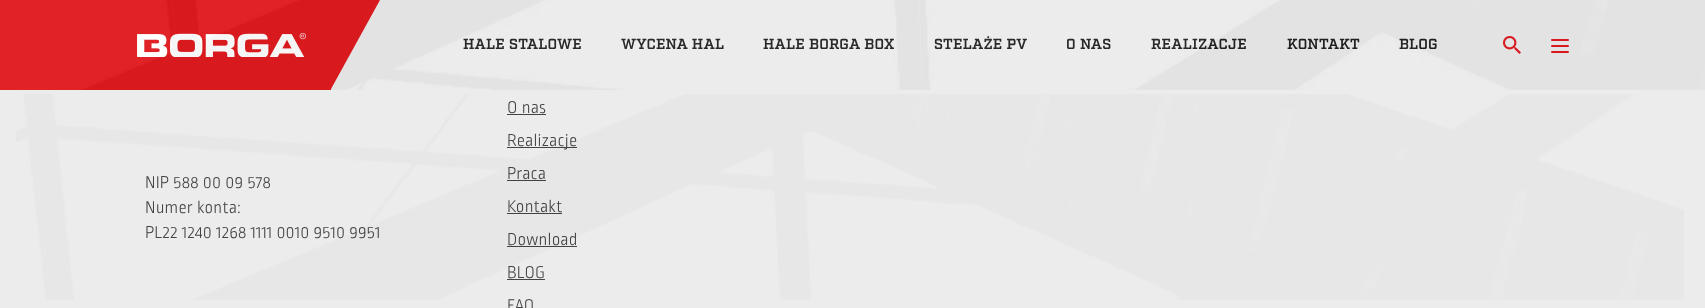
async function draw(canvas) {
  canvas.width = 1705
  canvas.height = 308
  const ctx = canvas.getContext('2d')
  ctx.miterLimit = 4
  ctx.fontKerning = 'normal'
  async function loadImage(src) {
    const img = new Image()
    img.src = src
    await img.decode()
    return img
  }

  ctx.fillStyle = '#ececed'
  ctx.fillRect(0, 0, 1705, 308)
  ctx.fillStyle = '#e01b21'
  ctx.fillRect(0, 0, 331, 90)
  ctx.drawImage(await loadImage('image1.png'), 137, 33, 169, 24)
  ctx.beginPath()
  ctx.moveTo(331, 0)
  ctx.lineTo(331, 89)
  ctx.lineTo(380, 0)
  ctx.closePath()
  ctx.fill()
  ctx.letterSpacing = '0.2px'
  ctx.font = '600 14.5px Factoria'
  ctx.fillStyle = '#222'
  ctx.fillText('HALE STALOWE', 463, 49)
  ctx.fillText('WYCENA HAL', 621, 49)
  ctx.fillText('HALE BORGA BOX', 763, 49)
  ctx.fillText('STELAŻE PV', 934, 49)
  ctx.fillText('O NAS', 1066, 49)
  ctx.fillText('REALIZACJE', 1151, 49)
  ctx.fillText('KONTAKT', 1287, 49)
  ctx.fillText('BLOG', 1399, 49)
  ctx.drawImage(await loadImage('image2.png'), 1503, 36, 18, 18)
  ctx.fillStyle = '#e01b21'
  ctx.beginPath()
  ctx.roundRect(1551, 39, 18, 2, 1)
  ctx.fill()
  ctx.beginPath()
  ctx.roundRect(1551, 45, 18, 2, 1)
  ctx.fill()
  ctx.beginPath()
  ctx.roundRect(1551, 51, 18, 2, 1)
  ctx.fill()
  ctx.drawImage(await loadImage('image0.png'), 0, 0, 1705, 90)
  ctx.font = '300 18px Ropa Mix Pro'
  ctx.fillStyle = '#444345'
  ctx.fillText('NIP 588 00 09 578', 145, 188)
  ctx.fillText('Numer konta:', 145, 213)
  ctx.fillText('PL22 1240 1268 1111 0010 9510 9951', 145, 238)
  ctx.fillText('O nas', 507, 113)
  ctx.fillRect(507, 114, 39, 1)
  ctx.fillRect(507, 147, 70, 1)
  ctx.fillText('Realizacje', 507, 146)
  ctx.fillText('Praca', 507, 179)
  ctx.fillRect(507, 180, 39, 1)
  ctx.fillText('Kontakt', 507, 212)
  ctx.fillRect(507, 213, 55, 1)
  ctx.fillText('Download', 507, 245)
  ctx.fillRect(507, 246, 70, 1)
  ctx.fillText('BLOG', 507, 278)
  ctx.fillRect(507, 279, 38, 1)
  ctx.fillText('FAQ', 507, 311)
  ctx.drawImage(await loadImage('image3.png'), 16, 94, 1668, 206)
}

draw(document.querySelector('canvas'))
